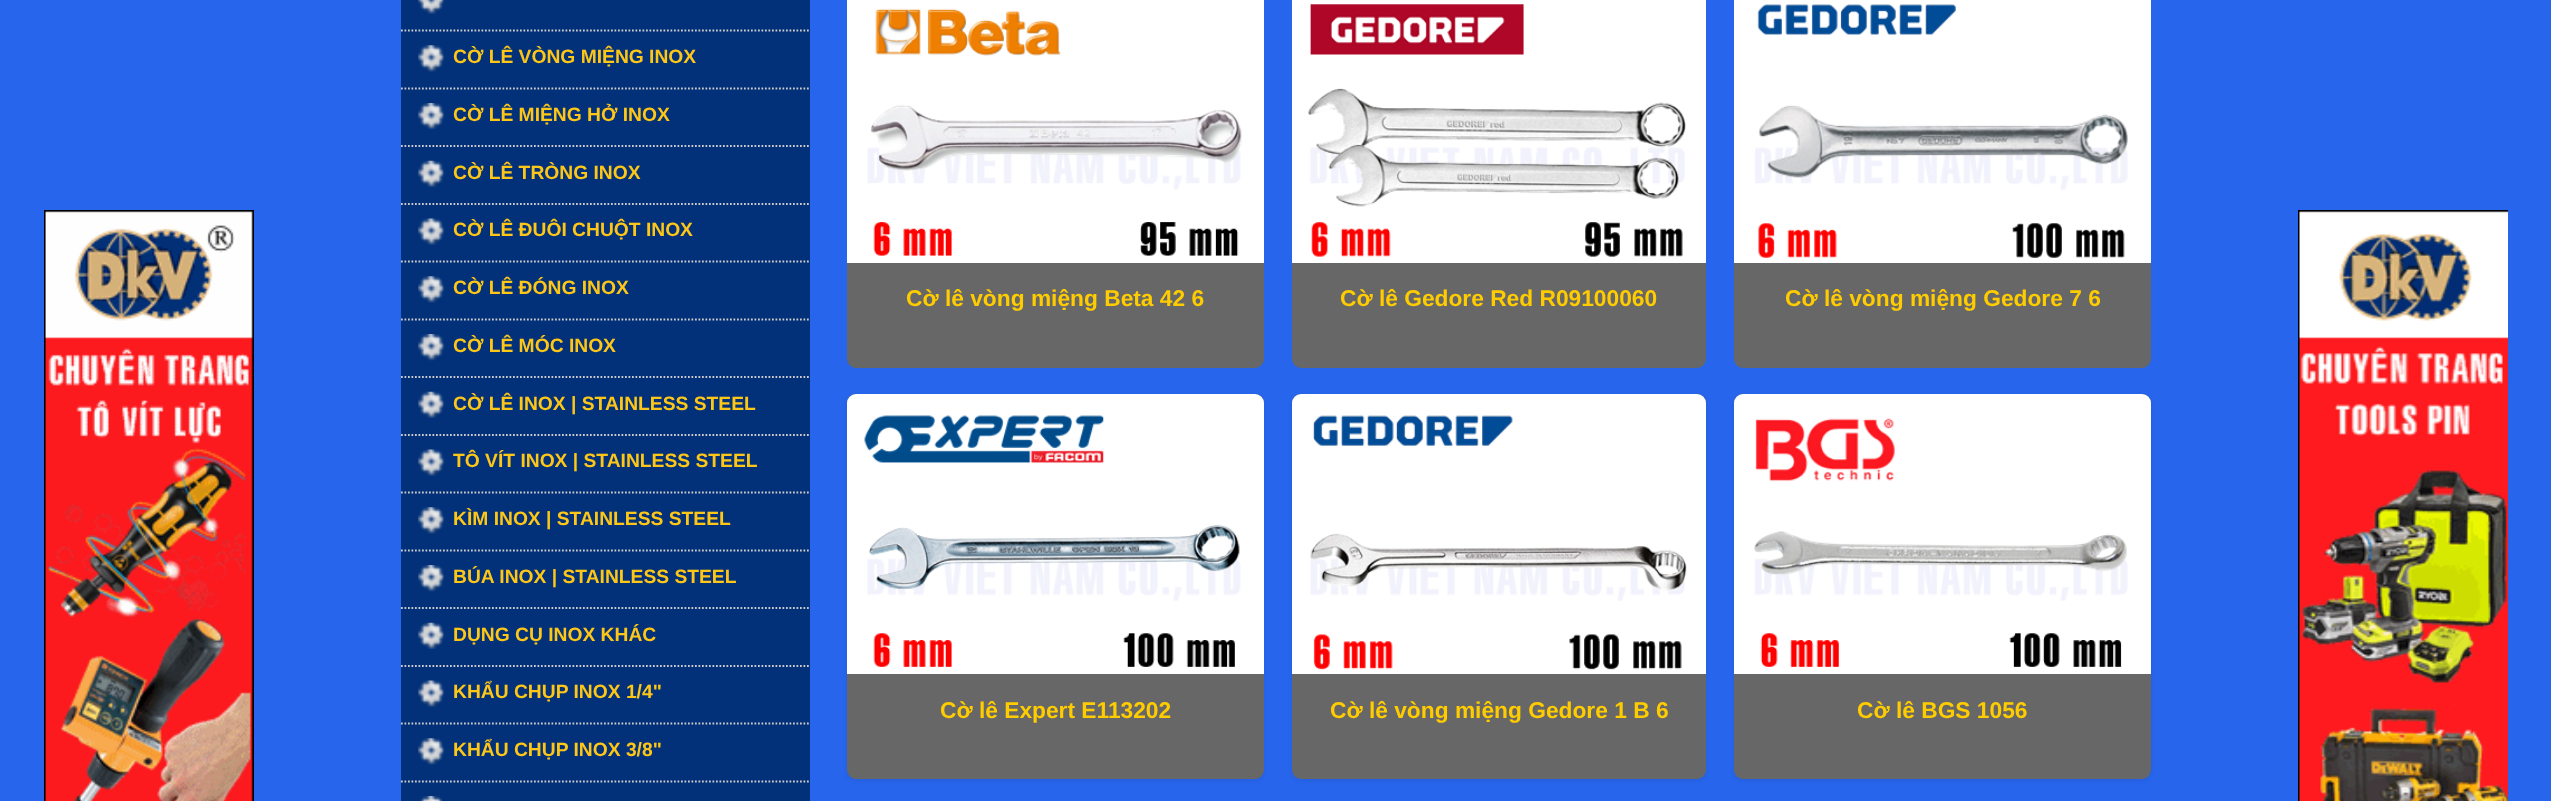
async function draw(canvas) {
  canvas.width = 2551
  canvas.height = 801
  const ctx = canvas.getContext('2d')
  ctx.miterLimit = 4
  ctx.fontKerning = 'normal'
  async function loadImage(src) {
    const img = new Image()
    img.src = src
    await img.decode()
    return img
  }

  ctx.fillStyle = '#2765ec'
  ctx.fillRect(0, 0, 2551, 801)
  ctx.fillStyle = '#023179'
  ctx.fillRect(401, 0, 409, 801)
  ctx.beginPath()
  ctx.moveTo(401, 30.5)
  ctx.lineTo(810, 30.5)
  ctx.strokeStyle = '#ccc'
  ctx.lineWidth = 1.8
  ctx.setLineDash([1.75, 1.75])
  ctx.stroke()
  ctx.drawImage(await loadImage('image0.png'), 418, 0, 27, 14)
  ctx.beginPath()
  ctx.moveTo(401, 88.5)
  ctx.lineTo(810, 88.5)
  ctx.stroke()
  ctx.drawImage(await loadImage('image1.png'), 418, 45, 27, 27)
  ctx.font = 'bold 19.25px Liberation Sans'
  ctx.fillStyle = '#fec617'
  ctx.fillText('CỜ LÊ VÒNG MIỆNG INOX', 453, 63)
  ctx.beginPath()
  ctx.moveTo(401, 146)
  ctx.lineTo(810, 146)
  ctx.stroke()
  ctx.drawImage(await loadImage('image2.png'), 418, 103, 27, 27)
  ctx.fillText('CỜ LÊ MIỆNG HỞ INOX', 453, 121)
  ctx.beginPath()
  ctx.moveTo(401, 204)
  ctx.lineTo(810, 204)
  ctx.stroke()
  ctx.drawImage(await loadImage('image3.png'), 418, 160, 27, 27)
  ctx.fillText('CỜ LÊ TRÒNG INOX', 453, 179)
  ctx.beginPath()
  ctx.moveTo(401, 261.5)
  ctx.lineTo(810, 261.5)
  ctx.stroke()
  ctx.drawImage(await loadImage('image4.png'), 418, 218, 27, 27)
  ctx.fillText('CỜ LÊ ĐUÔI CHUỘT INOX', 453, 236)
  ctx.beginPath()
  ctx.moveTo(401, 319.5)
  ctx.lineTo(810, 319.5)
  ctx.stroke()
  ctx.drawImage(await loadImage('image1.png'), 418, 276, 27, 27)
  ctx.fillText('CỜ LÊ ĐÓNG INOX', 453, 294)
  ctx.beginPath()
  ctx.moveTo(401, 377)
  ctx.lineTo(810, 377)
  ctx.stroke()
  ctx.drawImage(await loadImage('image2.png'), 418, 334, 27, 27)
  ctx.fillText('CỜ LÊ MÓC INOX', 453, 352)
  ctx.beginPath()
  ctx.moveTo(401, 435)
  ctx.lineTo(810, 435)
  ctx.stroke()
  ctx.drawImage(await loadImage('image3.png'), 418, 391, 27, 27)
  ctx.fillText('CỜ LÊ INOX | STAINLESS STEEL', 453, 410)
  ctx.beginPath()
  ctx.moveTo(401, 492.5)
  ctx.lineTo(810, 492.5)
  ctx.stroke()
  ctx.drawImage(await loadImage('image4.png'), 418, 449, 27, 27)
  ctx.fillText('TÔ VÍT INOX | STAINLESS STEEL', 453, 467)
  ctx.beginPath()
  ctx.moveTo(401, 550.5)
  ctx.lineTo(810, 550.5)
  ctx.stroke()
  ctx.drawImage(await loadImage('image1.png'), 418, 507, 27, 27)
  ctx.fillText('KÌM INOX | STAINLESS STEEL', 453, 525)
  ctx.beginPath()
  ctx.moveTo(401, 608)
  ctx.lineTo(810, 608)
  ctx.stroke()
  ctx.drawImage(await loadImage('image2.png'), 418, 565, 27, 27)
  ctx.fillText('BÚA INOX | STAINLESS STEEL', 453, 583)
  ctx.beginPath()
  ctx.moveTo(401, 666)
  ctx.lineTo(810, 666)
  ctx.stroke()
  ctx.drawImage(await loadImage('image3.png'), 418, 622, 27, 27)
  ctx.fillText('DỤNG CỤ INOX KHÁC', 453, 641)
  ctx.beginPath()
  ctx.moveTo(401, 723.5)
  ctx.lineTo(810, 723.5)
  ctx.stroke()
  ctx.drawImage(await loadImage('image4.png'), 418, 680, 27, 27)
  ctx.fillText('KHẨU CHỤP INOX 1/4"', 453, 698)
  ctx.beginPath()
  ctx.moveTo(401, 781.5)
  ctx.lineTo(810, 781.5)
  ctx.stroke()
  ctx.drawImage(await loadImage('image1.png'), 418, 738, 27, 27)
  ctx.fillText('KHẨU CHỤP INOX 3/8"', 453, 756)
  ctx.drawImage(await loadImage('image5.png'), 420, 796, 23, 5)
  ctx.fillStyle = '#676767'
  ctx.beginPath()
  ctx.roundRect(847, -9, 417, 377, 9)
  ctx.fill()
  ctx.fillStyle = '#fff'
  ctx.fillRect(847, 0, 417, 263)
  ctx.drawImage(await loadImage('image6.png'), 867, 8, 375, 248)
  ctx.font = 'bold 22.75px Liberation Sans'
  ctx.fillStyle = '#fc0'
  ctx.fillText('Cờ lê vòng miệng Beta 42 6', 906, 306)
  ctx.fillStyle = '#676767'
  ctx.beginPath()
  ctx.roundRect(1292, -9, 414, 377, 9)
  ctx.fill()
  ctx.fillStyle = '#fff'
  ctx.fillRect(1292, 0, 414, 263)
  ctx.drawImage(await loadImage('image7.png'), 1308, 4, 379, 253)
  ctx.fillStyle = '#fc0'
  ctx.fillText('Cờ lê Gedore Red R09100060', 1340, 306)
  ctx.fillStyle = '#676767'
  ctx.beginPath()
  ctx.roundRect(1734, -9, 417, 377, 9)
  ctx.fill()
  ctx.fillStyle = '#fff'
  ctx.fillRect(1734, 0, 417, 263)
  ctx.drawImage(await loadImage('image8.png'), 1755, 4, 373, 254)
  ctx.fillStyle = '#fc0'
  ctx.fillText('Cờ lê vòng miệng Gedore 7 6', 1785, 306)
  ctx.fillStyle = '#676767'
  ctx.beginPath()
  ctx.roundRect(847, 394, 417, 385, 9)
  ctx.fill()
  ctx.save()
  ctx.beginPath()
  ctx.moveTo(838, 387)
  ctx.lineTo(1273, 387)
  ctx.lineTo(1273, 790)
  ctx.lineTo(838, 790)
  ctx.closePath()
  ctx.moveTo(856, 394)
  ctx.lineTo(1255, 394)
  ctx.bezierCurveTo(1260, 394, 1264, 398, 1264, 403)
  ctx.lineTo(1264, 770)
  ctx.bezierCurveTo(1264, 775, 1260, 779, 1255, 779)
  ctx.lineTo(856, 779)
  ctx.bezierCurveTo(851, 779, 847, 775, 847, 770)
  ctx.lineTo(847, 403)
  ctx.bezierCurveTo(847, 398, 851, 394, 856, 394)
  ctx.closePath()
  ctx.clip('evenodd')
  ctx.fillStyle = '#0000000f'
  ctx.filter = 'blur(2.5px)'
  ctx.beginPath()
  ctx.roundRect(847, 396, 417, 385, 9)
  ctx.fill()
  ctx.filter = 'none'
  ctx.restore()
  ctx.fillStyle = '#fff'
  ctx.beginPath()
  ctx.roundRect(847, 394, 417, 280, [9, 9, 0, 0])
  ctx.fill()
  ctx.drawImage(await loadImage('image9.png'), 864, 415, 377, 252)
  ctx.fillStyle = '#fc0'
  ctx.fillText('Cờ lê Expert E113202', 940, 718)
  ctx.fillStyle = '#676767'
  ctx.beginPath()
  ctx.roundRect(1292, 394, 414, 385, 9)
  ctx.fill()
  ctx.save()
  ctx.beginPath()
  ctx.moveTo(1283, 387)
  ctx.lineTo(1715, 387)
  ctx.lineTo(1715, 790)
  ctx.lineTo(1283, 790)
  ctx.closePath()
  ctx.moveTo(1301, 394)
  ctx.lineTo(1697, 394)
  ctx.bezierCurveTo(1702, 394, 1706, 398, 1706, 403)
  ctx.lineTo(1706, 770)
  ctx.bezierCurveTo(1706, 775, 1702, 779, 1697, 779)
  ctx.lineTo(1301, 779)
  ctx.bezierCurveTo(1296, 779, 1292, 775, 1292, 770)
  ctx.lineTo(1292, 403)
  ctx.bezierCurveTo(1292, 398, 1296, 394, 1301, 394)
  ctx.closePath()
  ctx.clip('evenodd')
  ctx.fillStyle = '#0000000f'
  ctx.filter = 'blur(2.5px)'
  ctx.beginPath()
  ctx.roundRect(1292, 396, 414, 385, 9)
  ctx.fill()
  ctx.filter = 'none'
  ctx.restore()
  ctx.fillStyle = '#fff'
  ctx.beginPath()
  ctx.roundRect(1292, 394, 414, 280, [9, 9, 0, 0])
  ctx.fill()
  ctx.drawImage(await loadImage('image10.png'), 1310, 415, 377, 255)
  ctx.fillStyle = '#fc0'
  ctx.fillText('Cờ lê vòng miệng Gedore 1 B 6', 1330, 718)
  ctx.fillStyle = '#676767'
  ctx.beginPath()
  ctx.roundRect(1734, 394, 417, 385, 9)
  ctx.fill()
  ctx.save()
  ctx.beginPath()
  ctx.moveTo(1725, 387)
  ctx.lineTo(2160, 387)
  ctx.lineTo(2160, 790)
  ctx.lineTo(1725, 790)
  ctx.closePath()
  ctx.moveTo(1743, 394)
  ctx.lineTo(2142, 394)
  ctx.bezierCurveTo(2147, 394, 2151, 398, 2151, 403)
  ctx.lineTo(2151, 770)
  ctx.bezierCurveTo(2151, 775, 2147, 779, 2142, 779)
  ctx.lineTo(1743, 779)
  ctx.bezierCurveTo(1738, 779, 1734, 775, 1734, 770)
  ctx.lineTo(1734, 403)
  ctx.bezierCurveTo(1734, 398, 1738, 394, 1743, 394)
  ctx.closePath()
  ctx.clip('evenodd')
  ctx.fillStyle = '#0000000f'
  ctx.filter = 'blur(2.5px)'
  ctx.beginPath()
  ctx.roundRect(1734, 396, 417, 385, 9)
  ctx.fill()
  ctx.filter = 'none'
  ctx.restore()
  ctx.fillStyle = '#fff'
  ctx.beginPath()
  ctx.roundRect(1734, 394, 417, 280, [9, 9, 0, 0])
  ctx.fill()
  ctx.drawImage(await loadImage('image11.png'), 1754, 418, 374, 249)
  ctx.fillStyle = '#fc0'
  ctx.fillText('Cờ lê BGS 1056', 1857, 718)
  ctx.drawImage(await loadImage('image12.png'), 44, 210, 210, 591)
  ctx.drawImage(await loadImage('image13.png'), 2298, 210, 210, 591)
}

draw(document.querySelector('canvas'))
